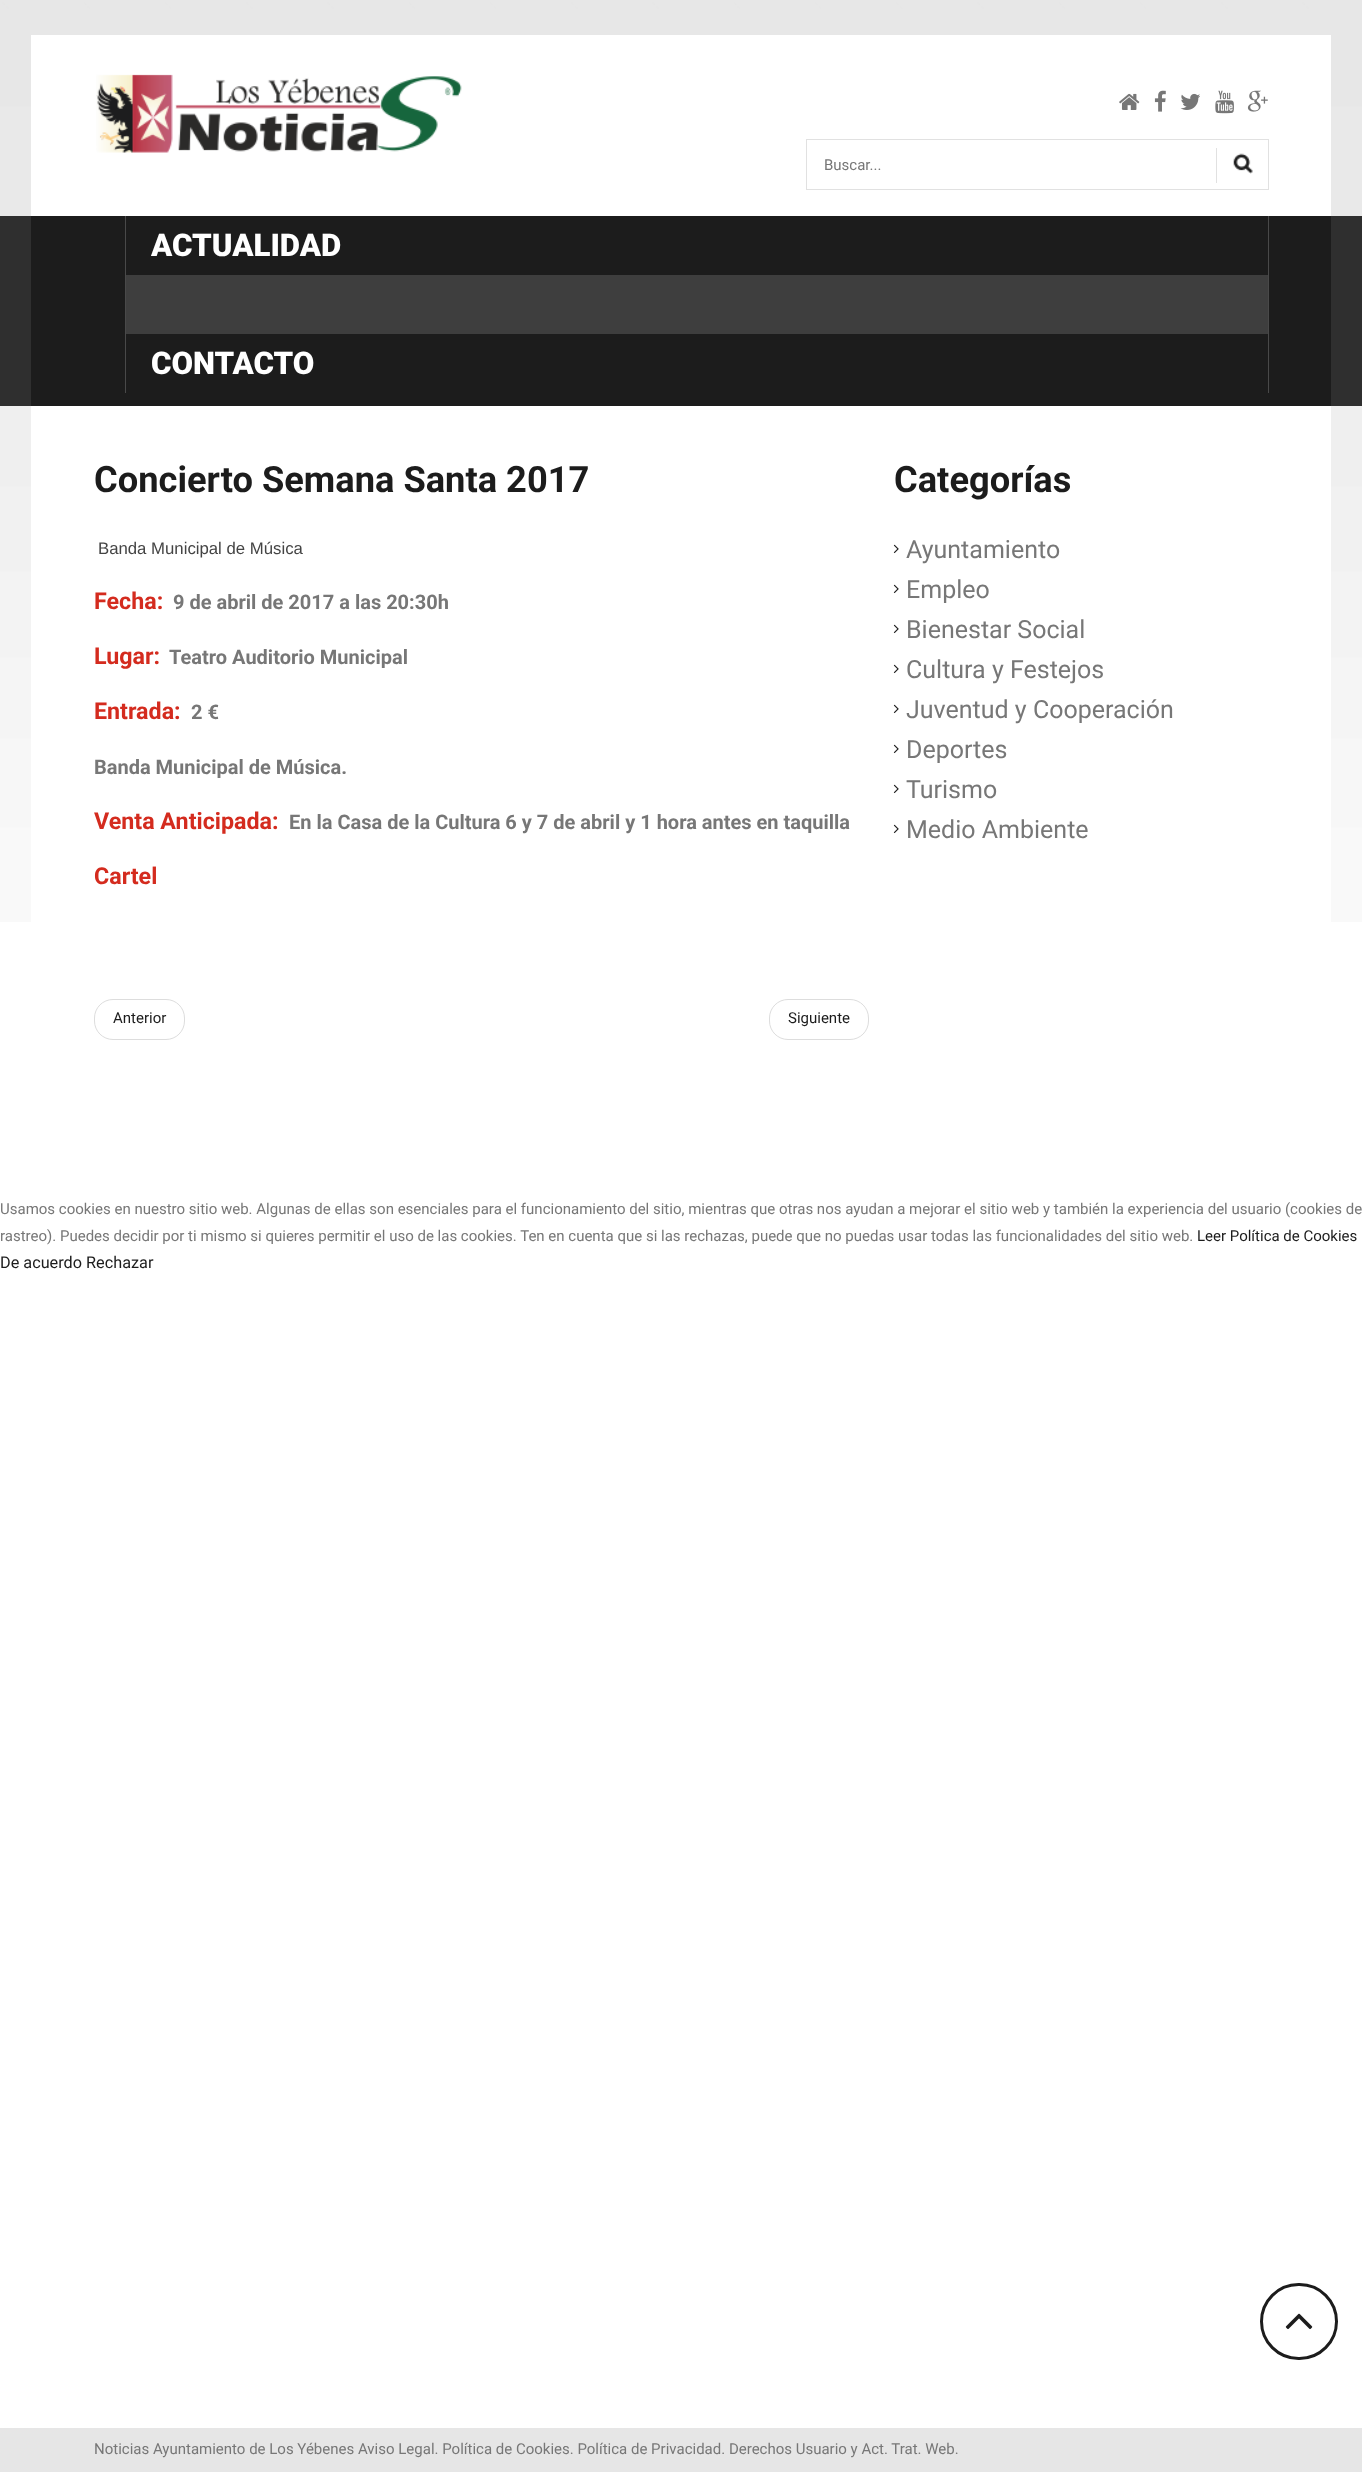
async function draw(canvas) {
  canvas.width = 1362
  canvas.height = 2472
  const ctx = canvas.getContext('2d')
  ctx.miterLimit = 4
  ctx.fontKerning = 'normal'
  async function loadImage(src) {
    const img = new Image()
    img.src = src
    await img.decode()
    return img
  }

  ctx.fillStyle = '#fff'
  ctx.fillRect(0, 0, 1362, 2472)
  ctx.drawImage(await loadImage('image0.png'), 0, 0, 1362, 922)
  ctx.fillRect(31, 35, 1300, 181)
  ctx.drawImage(await loadImage('image1.png'), 96, 74, 366, 79)
  ctx.drawImage(await loadImage('image2.png'), 1119, 93, 21, 17)
  ctx.drawImage(await loadImage('image3.png'), 1154, 90, 12, 22)
  ctx.drawImage(await loadImage('image4.png'), 1180, 93, 20, 17)
  ctx.drawImage(await loadImage('image5.png'), 1215, 90, 19, 24)
  ctx.drawImage(await loadImage('image6.png'), 1247, 90, 21, 22)
  ctx.strokeStyle = '#e1e1e1'
  ctx.strokeRect(806.5, 139.5, 462, 50)
  ctx.font = '15px Roboto'
  ctx.fillStyle = '#777'
  ctx.fillText('Buscar...', 824, 170)
  ctx.fillStyle = '#e1e1e1'
  ctx.fillRect(1216, 148, 1, 35)
  ctx.drawImage(await loadImage('image7.png'), 1233, 153, 20, 21)
  ctx.fillStyle = '#2f2f2f'
  ctx.fillRect(0, 216, 1362, 190)
  ctx.fillStyle = '#1c1c1c'
  ctx.fillRect(31, 216, 1300, 190)
  ctx.fillStyle = '#494949'
  ctx.fillRect(125, 216, 1, 177)
  ctx.fillRect(1268, 216, 1, 177)
  ctx.font = '900 31.25px Roboto'
  ctx.fillStyle = '#fff'
  ctx.fillText('ACTUALIDAD', 151, 256)
  ctx.fillStyle = '#3e3e3e'
  ctx.fillRect(126, 275, 1142, 59)
  ctx.fillStyle = '#fff'
  ctx.fillText('CONTACTO', 151, 374)
  ctx.fillRect(31, 406, 1300, 516)
  ctx.font = 'bold 36.25px Roboto'
  ctx.fillStyle = '#1c1c1c'
  ctx.fillText('Concierto Semana Santa 2017', 94, 492)
  ctx.font = '16.75px Liberation Sans'
  ctx.fillStyle = '#444'
  ctx.fillText('Banda Municipal de Música', 98, 554)
  ctx.font = 'bold 23.25px Roboto'
  ctx.fillStyle = '#d42b1e'
  ctx.fillText('Fecha:', 94, 609)
  ctx.font = 'bold 20px Roboto'
  ctx.fillStyle = '#777'
  ctx.fillText('9 de abril de 2017 a las 20:30h', 173, 609)
  ctx.font = 'bold 23.25px Roboto'
  ctx.fillStyle = '#d42b1e'
  ctx.fillText('Lugar:', 94, 664)
  ctx.font = 'bold 20px Roboto'
  ctx.fillStyle = '#777'
  ctx.fillText('Teatro Auditorio Municipal', 169, 664)
  ctx.font = 'bold 23.25px Roboto'
  ctx.fillStyle = '#d42b1e'
  ctx.fillText('Entrada:', 94, 719)
  ctx.font = 'bold 20px Roboto'
  ctx.fillStyle = '#777'
  ctx.fillText('2 €', 191, 719)
  ctx.fillText('Banda Municipal de Música.', 94, 774)
  ctx.font = 'bold 23.25px Roboto'
  ctx.fillStyle = '#d42b1e'
  ctx.fillText('Venta Anticipada:', 94, 829)
  ctx.font = 'bold 20px Roboto'
  ctx.fillStyle = '#777'
  ctx.fillText('En la Casa de la Cultura 6 y 7 de abril y 1 hora antes en taquilla', 289, 829)
  ctx.font = 'bold 23.25px Roboto'
  ctx.fillStyle = '#d42b1e'
  ctx.fillText('Cartel', 94, 884)
  ctx.beginPath()
  ctx.roundRect(94.5, 999.5, 90, 40, 18.5)
  ctx.strokeStyle = '#ddd'
  ctx.stroke()
  ctx.font = '15px Roboto'
  ctx.fillStyle = '#1c1c1c'
  ctx.fillText('Anterior', 113, 1023)
  ctx.beginPath()
  ctx.roundRect(769.5, 999.5, 99, 40, 18.5)
  ctx.stroke()
  ctx.fillText('Siguiente', 788, 1023)
  ctx.font = 'bold 36.25px Roboto'
  ctx.fillText('Categorías', 894, 492)
  ctx.drawImage(await loadImage('image8.png'), 893, 544, 6, 10)
  ctx.font = '25px Roboto'
  ctx.fillStyle = '#777'
  ctx.fillText('Ayuntamiento', 906, 558)
  ctx.drawImage(await loadImage('image8.png'), 893, 584, 6, 10)
  ctx.fillText('Empleo', 906, 598)
  ctx.drawImage(await loadImage('image8.png'), 893, 624, 6, 10)
  ctx.fillText('Bienestar Social', 906, 638)
  ctx.drawImage(await loadImage('image8.png'), 893, 664, 6, 10)
  ctx.fillText('Cultura y Festejos', 906, 678)
  ctx.drawImage(await loadImage('image8.png'), 893, 704, 6, 10)
  ctx.fillText('Juventud y Cooperación', 906, 718)
  ctx.drawImage(await loadImage('image8.png'), 893, 744, 6, 10)
  ctx.fillText('Deportes', 906, 758)
  ctx.drawImage(await loadImage('image8.png'), 893, 784, 6, 10)
  ctx.fillText('Turismo', 906, 798)
  ctx.drawImage(await loadImage('image8.png'), 893, 824, 6, 10)
  ctx.fillText('Medio Ambiente', 906, 838)
  ctx.font = '15px Roboto'
  ctx.fillText('Usamos cookies en nuestro sitio web. Algunas de ellas son esenciales para el funcionamiento del sitio, mientras que otras nos ayudan a mejorar el sitio web y también la experiencia del usuario (cookies de', 0, 1214)
  ctx.fillText('rastreo). Puedes decidir por ti mismo si quieres permitir el uso de las cookies. Ten en cuenta que si las rechazas, puede que no puedas usar todas las funcionalidades del sitio web.', 0, 1241)
  ctx.fillStyle = '#1c1c1c'
  ctx.fillText('Leer Política de Cookies', 1197, 1241)
  ctx.font = '16.25px Roboto'
  ctx.fillText('De acuerdo Rechazar', 0, 1268)
  ctx.beginPath()
  ctx.roundRect(1261.5, 2284.5, 75, 74, 37)
  ctx.strokeStyle = '#1c1c1c'
  ctx.lineWidth = 3
  ctx.stroke()
  ctx.drawImage(await loadImage('image9.png'), 1285, 2313, 28, 17)
  ctx.fillStyle = '#e6e6e6'
  ctx.fillRect(0, 2428, 1362, 44)
  ctx.font = '15px Roboto'
  ctx.fillStyle = '#777'
  ctx.fillText('Noticias Ayuntamiento de Los Yébenes Aviso Legal. Política de Cookies. Política de Privacidad. Derechos Usuario y Act. Trat. Web.', 94, 2454)
}

draw(document.querySelector('canvas'))
